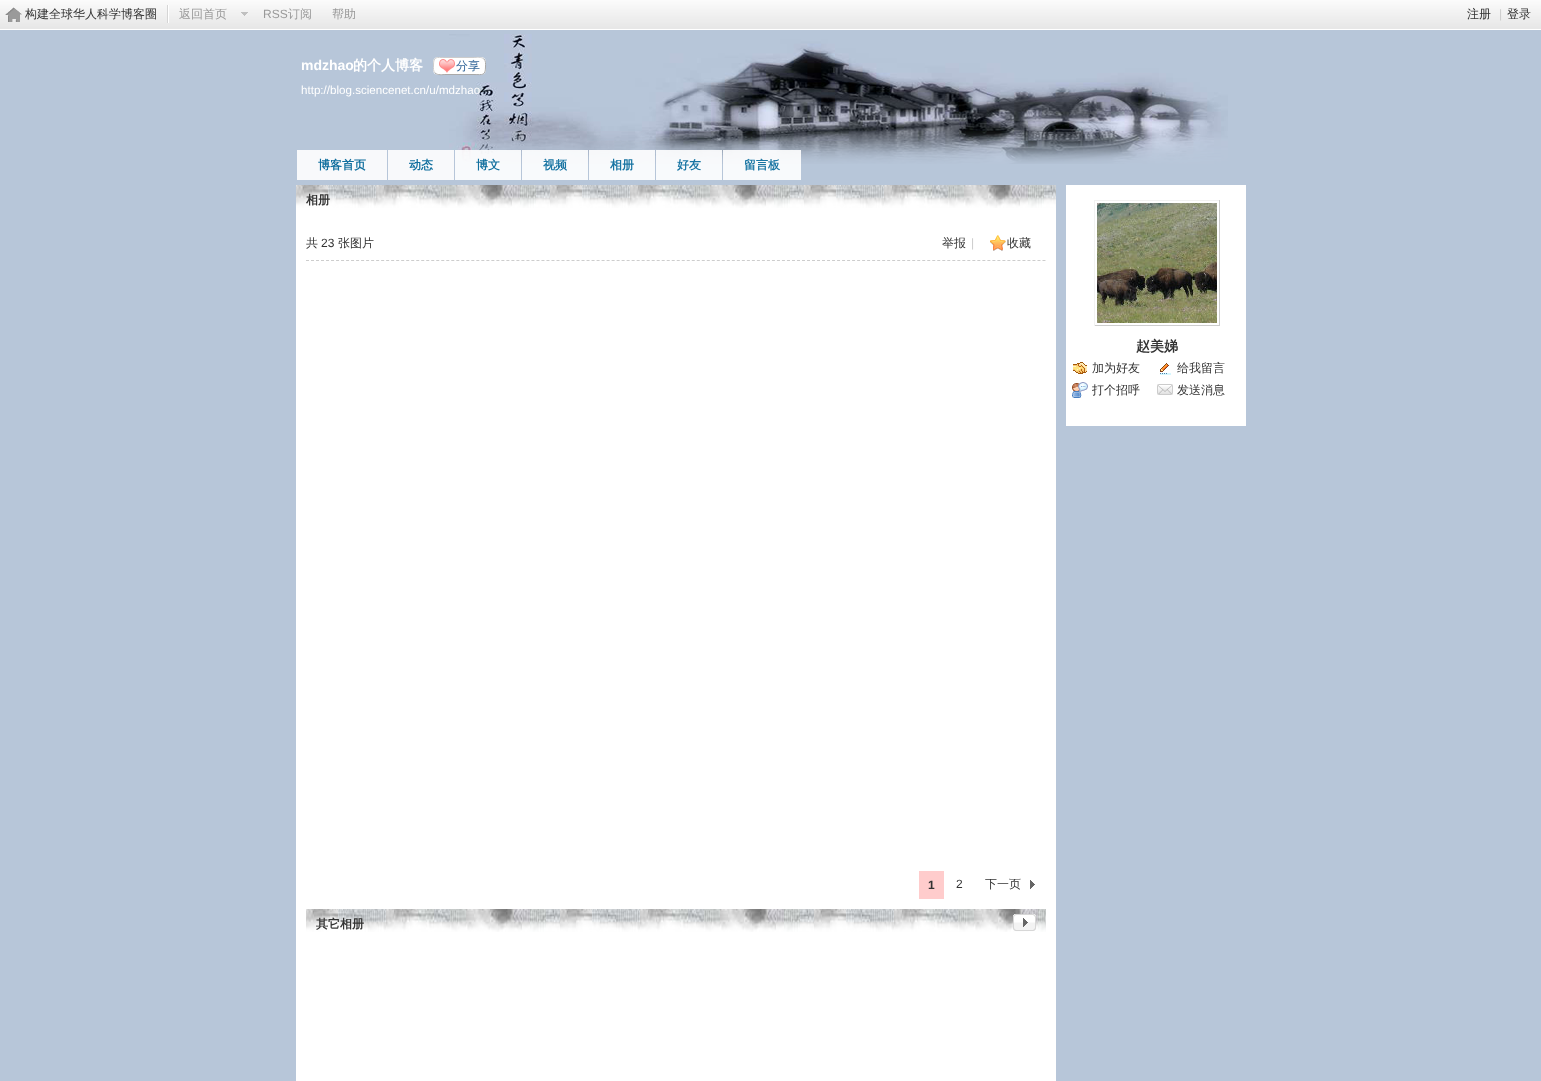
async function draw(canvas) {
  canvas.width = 1541
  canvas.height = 1081
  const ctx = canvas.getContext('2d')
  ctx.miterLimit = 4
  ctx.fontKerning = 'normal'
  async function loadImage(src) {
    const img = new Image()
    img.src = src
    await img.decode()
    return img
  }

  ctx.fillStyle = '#b7c6d9'
  ctx.fillRect(0, 0, 1541, 1081)
  ctx.drawImage(await loadImage('image0.png'), 0, 0, 1541, 30)
  ctx.drawImage(await loadImage('image1.png'), 5, 7, 17, 15)
  ctx.fillStyle = '#fff'
  ctx.fillRect(168, 5, 1, 18)
  ctx.fillStyle = '#d5d5d5'
  ctx.fillRect(167, 5, 1, 18)
  ctx.font = '500 12px WenQuanYi Zen Hei'
  ctx.fillStyle = '#333'
  ctx.fillText('构建全球华人科学博客圈', 25, 18)
  ctx.fillStyle = '#999'
  ctx.fillText('返回首页', 179, 18)
  ctx.drawImage(await loadImage('image2.png'), 241, 12, 7, 4)
  ctx.font = '12px Liberation Sans'
  ctx.fillText('RSS', 263, 18)
  ctx.font = '500 12px WenQuanYi Zen Hei'
  ctx.fillText('订阅', 288, 18)
  ctx.fillText('帮助', 332, 18)
  ctx.fillStyle = '#333'
  ctx.fillText('注册', 1467, 18)
  ctx.font = '12px Liberation Sans'
  ctx.fillStyle = '#ccc'
  ctx.fillText('|', 1499, 18)
  ctx.font = '500 12px WenQuanYi Zen Hei'
  ctx.fillStyle = '#333'
  ctx.fillText('登录', 1507, 18)
  ctx.drawImage(await loadImage('image3.png'), 449, 34, 779, 130)
  ctx.font = 'bold 14px Liberation Sans'
  ctx.fillStyle = '#fff'
  ctx.fillText('mdzhao', 301, 70)
  ctx.font = 'bold 14px WenQuanYi Zen Hei'
  ctx.fillText('的个人博客', 353, 70)
  ctx.beginPath()
  ctx.roundRect(433, 57, 53, 18, 5)
  ctx.fill()
  ctx.drawImage(await loadImage('image4.png'), 439, 59, 16, 14)
  ctx.beginPath()
  ctx.moveTo(484, 59)
  ctx.bezierCurveTo(486, 61, 485.5, 64, 485.5, 67)
  ctx.bezierCurveTo(485.5, 76, 482.5, 74.5, 474, 74.5)
  ctx.lineTo(445, 74.5)
  ctx.bezierCurveTo(443, 74.5, 437.5, 75.5, 435, 73)
  ctx.strokeStyle = '#a9a9a9'
  ctx.stroke()
  ctx.beginPath()
  ctx.moveTo(435, 73)
  ctx.bezierCurveTo(433, 71, 433.5, 68, 433.5, 65)
  ctx.bezierCurveTo(433.5, 56, 436.5, 57.5, 445, 57.5)
  ctx.lineTo(474, 57.5)
  ctx.bezierCurveTo(476, 57.5, 481.5, 56.5, 484, 59)
  ctx.strokeStyle = '#ccc'
  ctx.stroke()
  ctx.font = '500 12px WenQuanYi Zen Hei'
  ctx.fillStyle = '#369'
  ctx.fillText('分享', 456, 70)
  ctx.font = '11.6px Liberation Sans'
  ctx.fillStyle = '#fff'
  ctx.fillText('http://blog.sciencenet.cn/u/mdzhao', 301, 94)
  ctx.fillStyle = '#f8f9fb'
  ctx.fillRect(297, 150, 90, 30)
  ctx.font = 'bold 12px WenQuanYi Zen Hei'
  ctx.fillStyle = '#12709f'
  ctx.fillText('博客首页', 318, 169)
  ctx.fillStyle = '#f8f9fb'
  ctx.fillRect(388, 150, 66, 30)
  ctx.fillStyle = '#12709f'
  ctx.fillText('动态', 409, 169)
  ctx.fillStyle = '#ffffffe6'
  ctx.fillRect(455, 150, 66, 30)
  ctx.fillStyle = '#12709f'
  ctx.fillText('博文', 476, 169)
  ctx.fillStyle = '#ffffffe6'
  ctx.fillRect(522, 150, 66, 30)
  ctx.fillStyle = '#1975a3'
  ctx.fillText('视频', 543, 169)
  ctx.fillStyle = '#ffffffe6'
  ctx.fillRect(589, 150, 66, 30)
  ctx.fillStyle = '#1975a3'
  ctx.fillText('相册', 610, 169)
  ctx.fillStyle = '#ffffffe6'
  ctx.fillRect(656, 150, 66, 30)
  ctx.fillStyle = '#1975a3'
  ctx.fillText('好友', 677, 169)
  ctx.fillStyle = '#ffffffe6'
  ctx.fillRect(723, 150, 78, 30)
  ctx.fillStyle = '#1975a3'
  ctx.fillText('留言板', 744, 169)
  ctx.fillStyle = '#fff'
  ctx.fillRect(296, 208, 760, 873)
  ctx.drawImage(await loadImage('image5.png'), 296, 185, 760, 23)
  ctx.fillStyle = '#333'
  ctx.fillText('相册', 306, 204)
  ctx.beginPath()
  ctx.moveTo(306, 260.5)
  ctx.lineTo(1046, 260.5)
  ctx.strokeStyle = '#cdcdcd'
  ctx.setLineDash([3, 2.01])
  ctx.stroke()
  ctx.font = '500 12px WenQuanYi Zen Hei'
  ctx.fillText('共', 306, 247)
  ctx.font = '12px Liberation Sans'
  ctx.fillText('23', 321, 247)
  ctx.font = '500 12px WenQuanYi Zen Hei'
  ctx.fillText('张图片', 338, 247)
  ctx.fillText('举报', 942, 247)
  ctx.font = '12px Liberation Sans'
  ctx.fillStyle = '#ccc'
  ctx.fillText('|', 971, 247)
  ctx.drawImage(await loadImage('image6.png'), 990, 235, 16, 16)
  ctx.font = '500 12px WenQuanYi Zen Hei'
  ctx.fillStyle = '#333'
  ctx.fillText('收藏', 1007, 247)
  ctx.fillStyle = '#fcc'
  ctx.fillRect(919, 871, 25, 28)
  ctx.font = 'bold 12px Liberation Sans'
  ctx.fillStyle = '#333'
  ctx.fillText('1', 928, 889)
  ctx.font = '12px Liberation Sans'
  ctx.fillText('2', 956, 888)
  ctx.drawImage(await loadImage('image7.png'), 1030, 880, 5, 9)
  ctx.font = '500 12px WenQuanYi Zen Hei'
  ctx.fillText('下一页', 985, 888)
  ctx.drawImage(await loadImage('image8.png'), 306, 909, 740, 23)
  ctx.font = 'bold 12px WenQuanYi Zen Hei'
  ctx.fillText('其它相册', 316, 928)
  ctx.drawImage(await loadImage('image9.png'), 1013, 914, 23, 17)
  ctx.fillStyle = '#fff'
  ctx.fillRect(1066, 185, 180, 241)
  ctx.fillStyle = '#f2f2f2'
  ctx.fillRect(1094, 200, 126, 1)
  ctx.fillStyle = '#cdcdcd'
  ctx.fillRect(1219, 200, 1, 126)
  ctx.fillRect(1094, 325, 126, 1)
  ctx.fillStyle = '#f2f2f2'
  ctx.fillRect(1094, 200, 1, 126)
  ctx.drawImage(await loadImage('image10.png'), 1097, 203, 120, 120)
  ctx.font = 'bold 14px WenQuanYi Zen Hei'
  ctx.fillStyle = '#333'
  ctx.fillText('赵美娣', 1136, 351)
  ctx.drawImage(await loadImage('image11.png'), 1073, 362, 14, 12)
  ctx.font = '500 12px WenQuanYi Zen Hei'
  ctx.fillText('加为好友', 1092, 372)
  ctx.drawImage(await loadImage('image12.png'), 1160, 363, 11, 12)
  ctx.fillText('给我留言', 1177, 372)
  ctx.drawImage(await loadImage('image13.png'), 1072, 382, 16, 16)
  ctx.fillText('打个招呼', 1092, 394)
  ctx.drawImage(await loadImage('image14.png'), 1157, 384, 16, 11)
  ctx.fillText('发送消息', 1177, 394)
}

draw(document.querySelector('canvas'))
